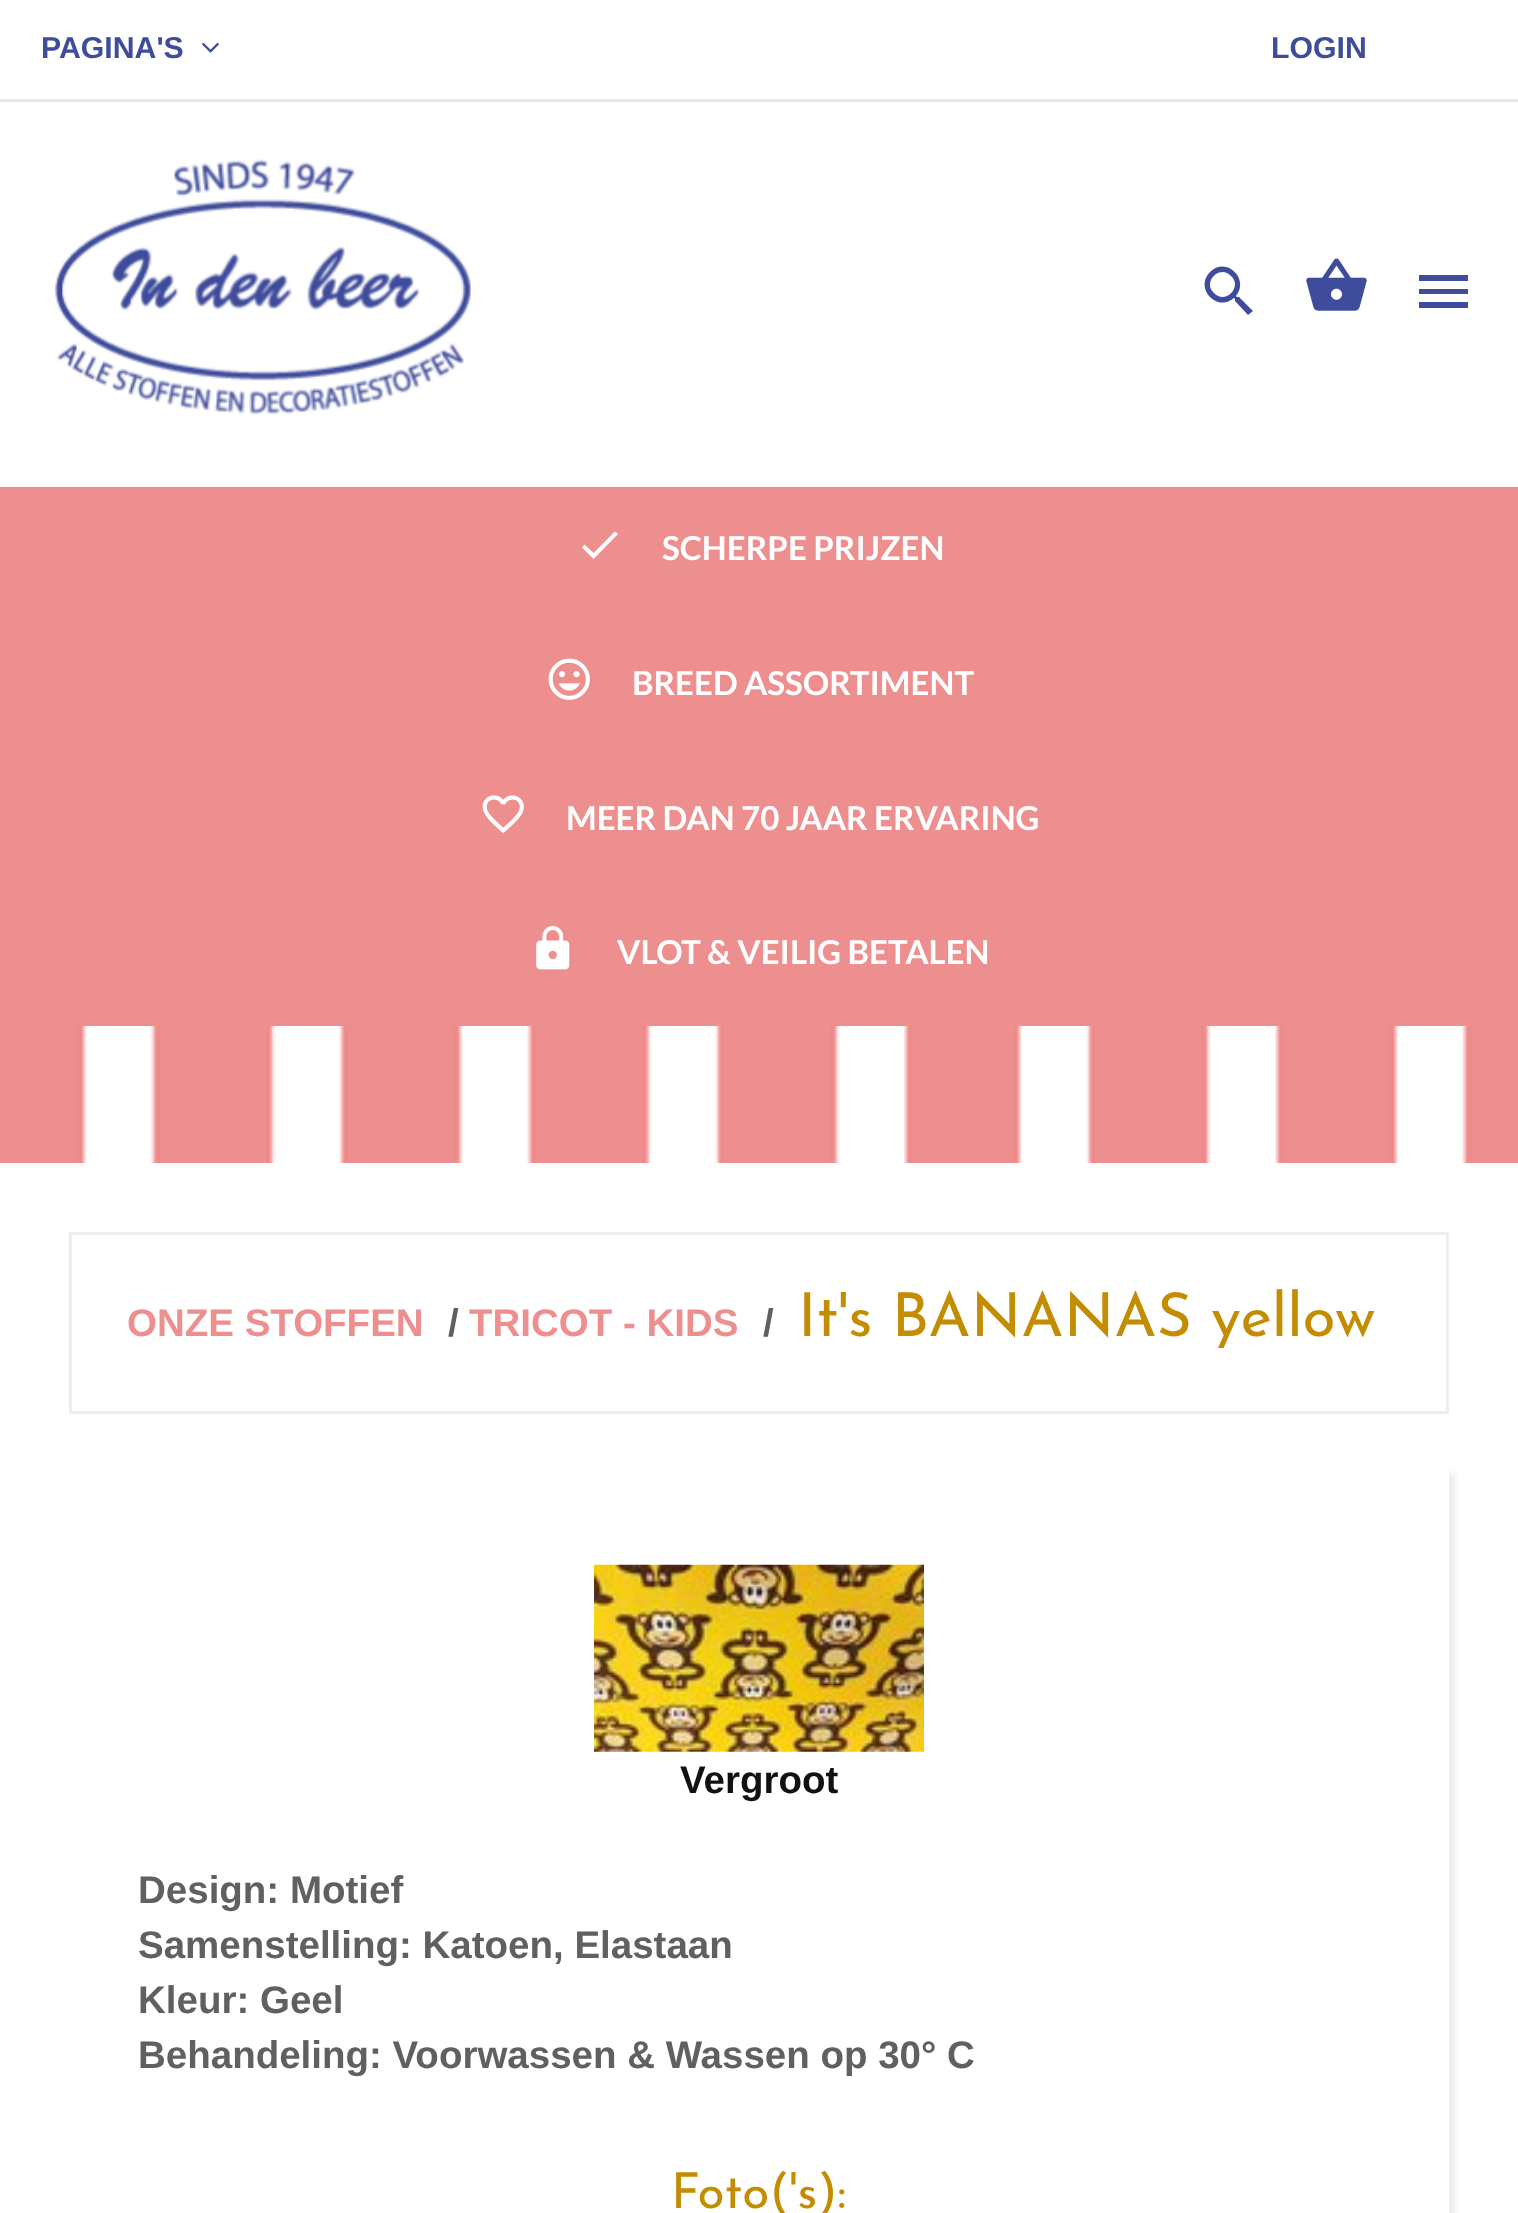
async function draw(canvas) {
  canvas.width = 1518
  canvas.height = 2213
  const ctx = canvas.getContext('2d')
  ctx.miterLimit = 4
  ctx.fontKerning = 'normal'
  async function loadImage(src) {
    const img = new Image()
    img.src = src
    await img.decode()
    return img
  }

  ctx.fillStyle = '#fff'
  ctx.fillRect(0, 0, 1518, 2213)
  ctx.fillStyle = '#e6e6e6'
  ctx.fillRect(0, 99, 1518, 3)
  ctx.font = 'bold 30.25px Liberation Sans'
  ctx.fillStyle = '#3f4c9b'
  ctx.fillText('PAGINA\'S', 41, 58)
  ctx.drawImage(await loadImage('image0.png'), 202, 42, 17, 11)
  ctx.fillText('LOGIN', 1271, 58)
  ctx.drawImage(await loadImage('image1.png'), 54, 159, 417, 255)
  ctx.beginPath()
  ctx.moveTo(1214, 293)
  ctx.bezierCurveTo(1225, 305, 1243, 287, 1231, 276)
  ctx.bezierCurveTo(1220, 264, 1202, 282, 1214, 293)
  ctx.closePath()
  ctx.moveTo(1239, 297)
  ctx.lineTo(1253, 311)
  ctx.lineTo(1248, 315)
  ctx.lineTo(1235, 301)
  ctx.lineTo(1235, 299)
  ctx.lineTo(1234, 298)
  ctx.bezierCurveTo(1217, 313, 1194, 288, 1210, 272)
  ctx.bezierCurveTo(1226, 256, 1250, 279, 1236, 296)
  ctx.lineTo(1237, 297)
  ctx.closePath()
  ctx.fill()
  ctx.drawImage(await loadImage('image2.png'), 1306, 258, 61, 53)
  ctx.beginPath()
  ctx.moveTo(1419, 275)
  ctx.lineTo(1468, 275)
  ctx.lineTo(1468, 281)
  ctx.lineTo(1419, 281)
  ctx.closePath()
  ctx.moveTo(1419, 294)
  ctx.lineTo(1419, 289)
  ctx.lineTo(1468, 289)
  ctx.lineTo(1468, 294)
  ctx.closePath()
  ctx.moveTo(1419, 308)
  ctx.lineTo(1419, 302)
  ctx.lineTo(1468, 302)
  ctx.lineTo(1468, 308)
  ctx.closePath()
  ctx.fill()
  ctx.fillStyle = '#ee8f8f'
  ctx.fillRect(0, 487, 1518, 539)
  ctx.fillStyle = '#fff'
  ctx.beginPath()
  ctx.moveTo(593.5, 553)
  ctx.lineTo(615, 531.5)
  ctx.lineTo(618, 534)
  ctx.lineTo(593.5, 559)
  ctx.lineTo(582, 547.5)
  ctx.lineTo(584.5, 544.5)
  ctx.closePath()
  ctx.fill()
  ctx.font = 'bold 33px Lato'
  ctx.fillText('SCHERPE PRIJZEN', 662, 560)
  ctx.drawImage(await loadImage('image3.png'), 548, 658, 42, 42)
  ctx.fillText('BREED ASSORTIMENT', 632, 695)
  ctx.drawImage(await loadImage('image4.png'), 482, 795, 42, 39)
  ctx.fillText('MEER DAN 70 JAAR ERVARING', 566, 830)
  ctx.drawImage(await loadImage('image5.png'), 536, 926, 34, 44)
  ctx.fillText('VLOT & VEILIG BETALEN', 617, 964)
  ctx.drawImage(await loadImage('image6.png'), 0, 1026, 1518, 137)
  ctx.strokeStyle = '#eee'
  ctx.lineWidth = 3
  ctx.strokeRect(70.5, 1233.5, 1377, 179)
  ctx.font = 'bold 38.5px Liberation Sans'
  ctx.fillStyle = '#ee8f8f'
  ctx.fillText('ONZE STOFFEN', 127, 1336)
  ctx.fillStyle = '#5e6062'
  ctx.fillText('/', 448, 1336)
  ctx.fillStyle = '#ee8f8f'
  ctx.fillText('TRICOT - KIDS', 469, 1336)
  ctx.fillStyle = '#5e6062'
  ctx.fillText('/', 763, 1336)
  ctx.font = '60.5px Josefin Sans'
  ctx.fillStyle = '#c48c00'
  ctx.fillText('It\'s BANANAS yellow', 798, 1336)
  ctx.save()
  ctx.beginPath()
  ctx.rect(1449, 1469, 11, 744)
  ctx.clip()
  ctx.fillStyle = '#d7d7d780'
  ctx.filter = 'blur(3px)'
  ctx.beginPath()
  ctx.rect(74, 1474, 1381, 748)
  ctx.fill()
  ctx.filter = 'none'
  ctx.restore()
  ctx.drawImage(await loadImage('image7.png'), 594, 1564, 330, 188)
  ctx.font = 'bold 38.5px Liberation Sans'
  ctx.fillStyle = '#111'
  ctx.fillText('Vergroot', 680, 1793)
  ctx.fillStyle = '#5e6062'
  ctx.fillText('Design: Motief', 138, 1903)
  ctx.fillText('Samenstelling: Katoen, Elastaan', 138, 1958)
  ctx.fillText('Kleur: Geel', 138, 2013)
  ctx.fillText('Behandeling: Voorwassen & Wassen op 30° C', 138, 2068)
  ctx.font = '49.5px Josefin Sans'
  ctx.fillStyle = '#c48c00'
  ctx.fillText('Foto(\'s):', 671, 2208)
}

draw(document.querySelector('canvas'))
